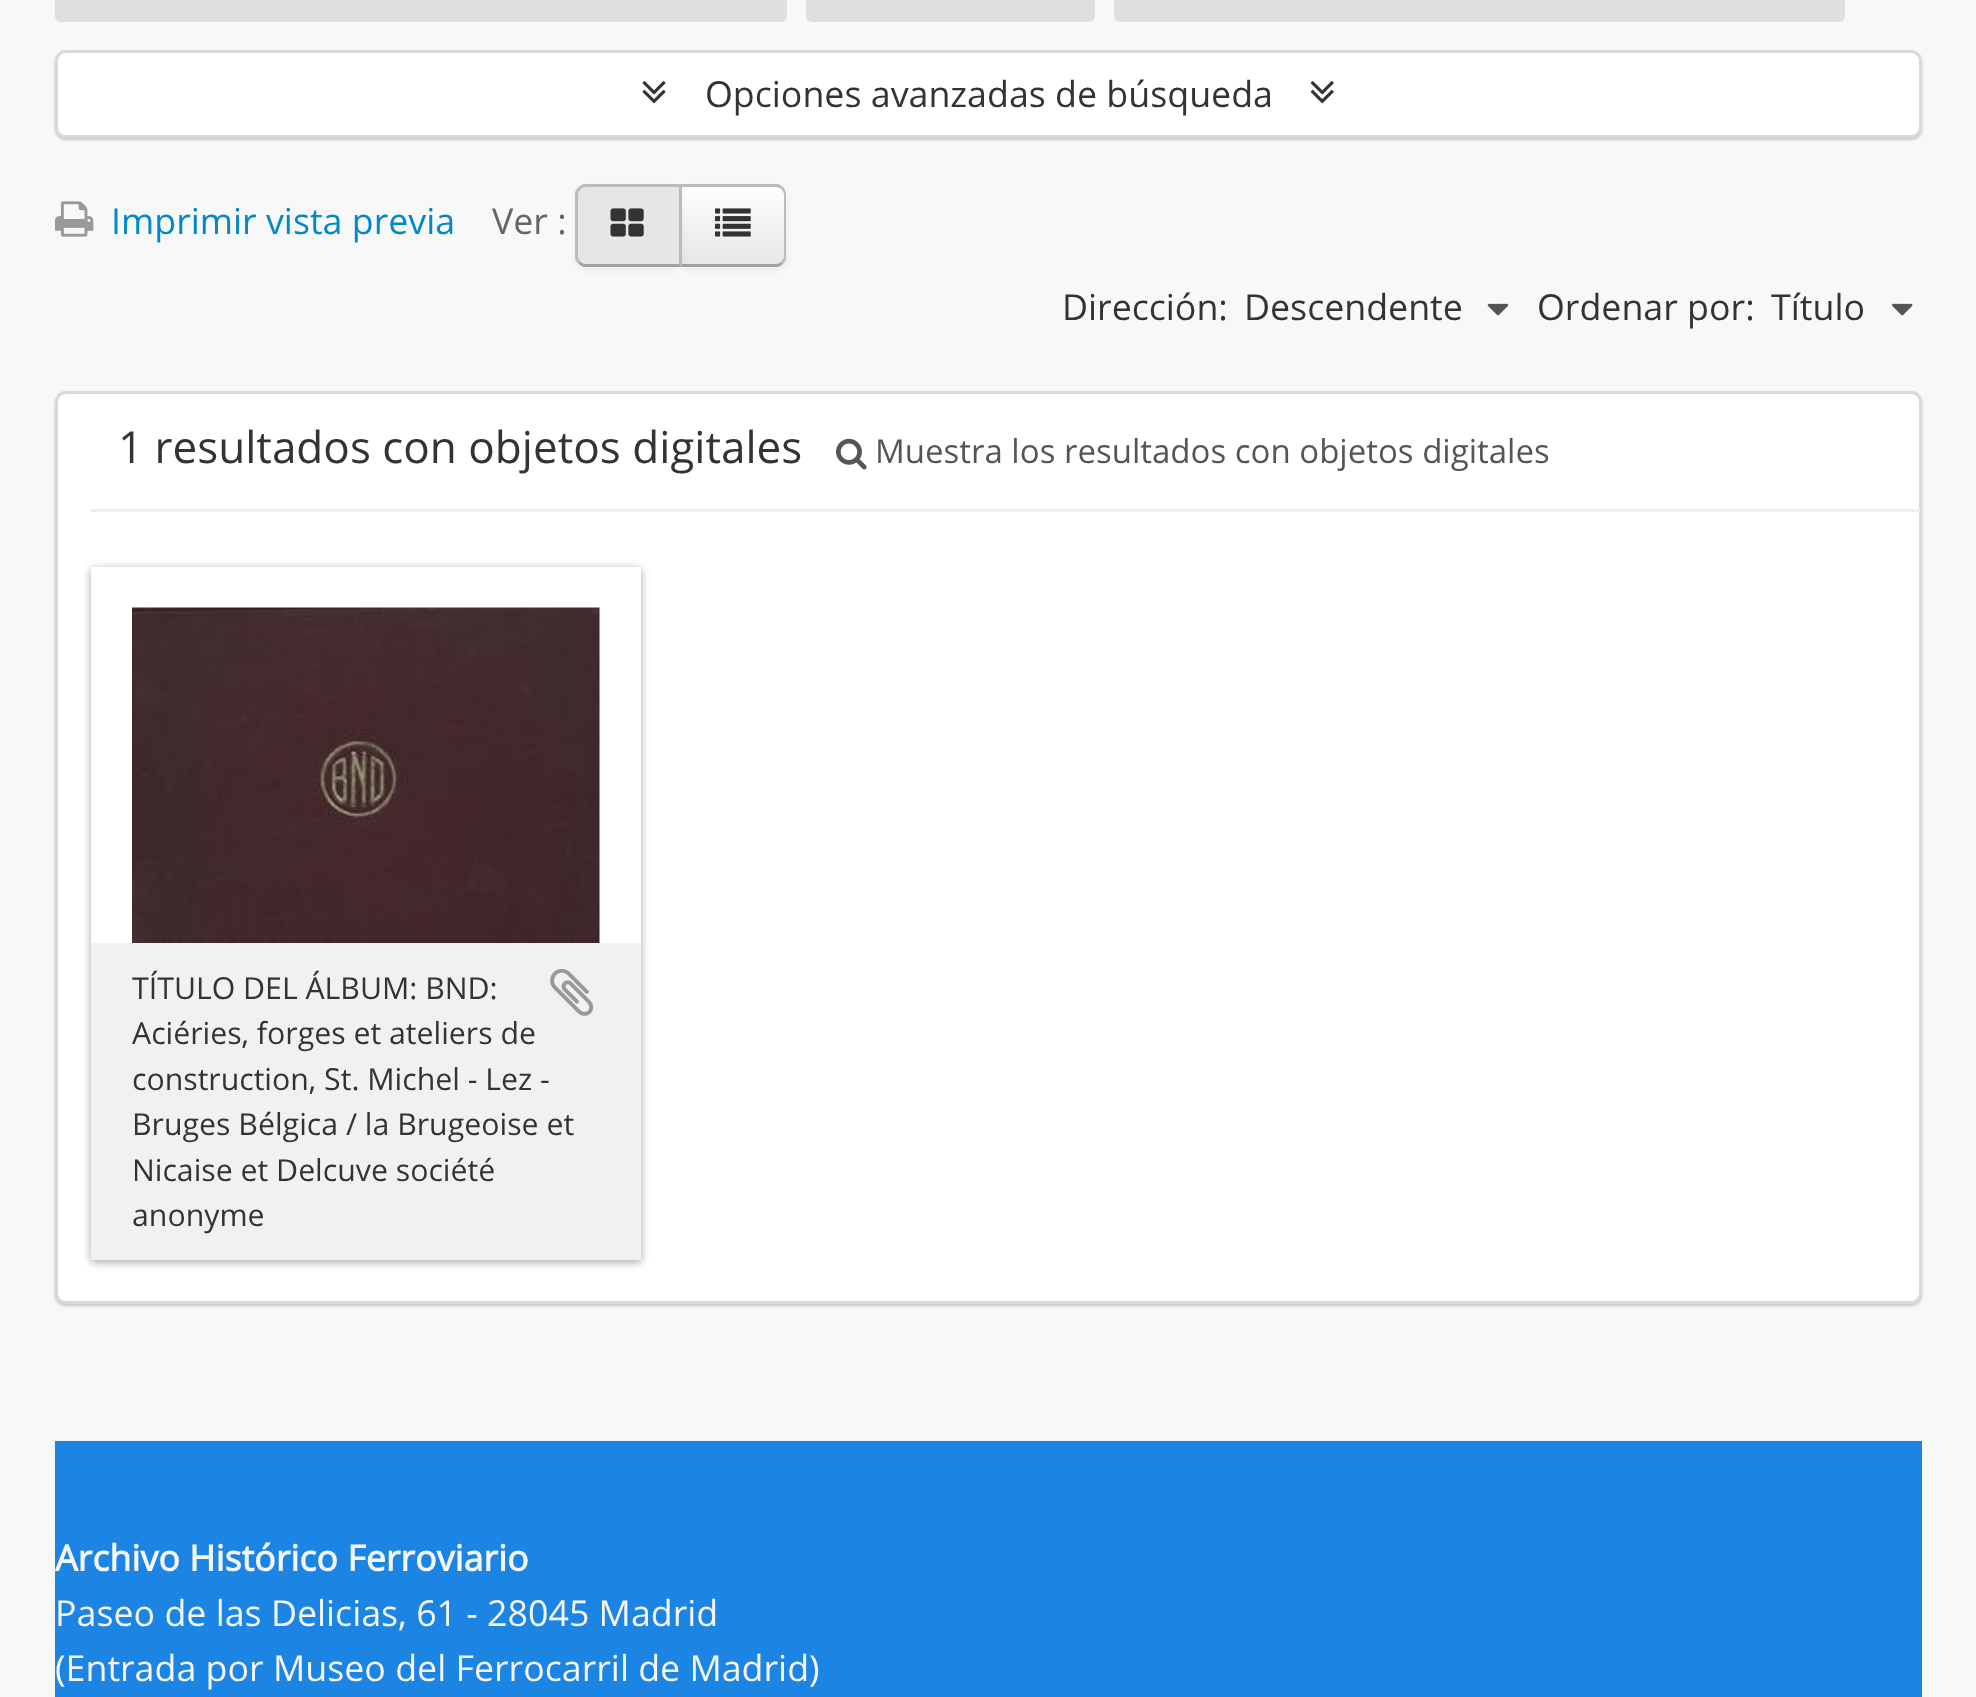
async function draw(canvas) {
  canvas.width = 1976
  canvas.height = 1697
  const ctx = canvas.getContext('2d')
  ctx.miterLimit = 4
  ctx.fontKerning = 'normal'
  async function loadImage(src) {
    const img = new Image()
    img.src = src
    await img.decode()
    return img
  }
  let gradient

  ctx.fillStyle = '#f8f8f8'
  ctx.fillRect(0, 0, 1976, 1697)
  ctx.fillStyle = '#dfdfdf'
  ctx.beginPath()
  ctx.roundRect(55, -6, 732, 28, 6)
  ctx.fill()
  ctx.beginPath()
  ctx.roundRect(806, -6, 289, 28, 6)
  ctx.fill()
  ctx.beginPath()
  ctx.roundRect(1114, -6, 731, 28, 6)
  ctx.fill()
  ctx.fillStyle = '#00000033'
  ctx.filter = 'blur(1.5px)'
  ctx.beginPath()
  ctx.roundRect(55, 52, 1867, 88, 11)
  ctx.fill()
  ctx.filter = 'none'
  ctx.fillStyle = '#fff'
  ctx.beginPath()
  ctx.roundRect(56.5, 51.5, 1864, 85, 9.5)
  ctx.fill()
  ctx.strokeStyle = '#d9d9d9'
  ctx.lineWidth = 3
  ctx.stroke()
  ctx.drawImage(await loadImage('image0.png'), 642, 81, 24, 23)
  ctx.font = '35.75px Open Sans'
  ctx.fillStyle = '#333'
  ctx.fillText('Opciones avanzadas de búsqueda', 705, 107)
  ctx.drawImage(await loadImage('image1.png'), 1310, 81, 24, 23)
  ctx.drawImage(await loadImage('image2.png'), 55, 201, 39, 36)
  ctx.fillStyle = '#08c'
  ctx.fillText('Imprimir vista previa', 111, 234)
  ctx.fillStyle = '#666'
  ctx.fillText('Ver :', 492, 234)
  ctx.fillStyle = '#0000000d'
  ctx.filter = 'blur(3px)'
  ctx.beginPath()
  ctx.roundRect(679, 187, 108, 83, 11)
  ctx.fill()
  ctx.filter = 'none'
  ctx.fillStyle = '#f5f5f5'
  ctx.beginPath()
  ctx.roundRect(679, 184, 108, 83, [0, 11, 11, 0])
  ctx.fill()
  ctx.save()
  ctx.beginPath()
  ctx.roundRect(679, 184, 108, 83, [0, 11, 11, 0])
  ctx.clip()
  gradient = ctx.createLinearGradient(733, 187, 733, 264)
  gradient.addColorStop(0, '#fff')
  gradient.addColorStop(1, '#e6e6e6')
  ctx.fillStyle = gradient
  ctx.fillRect(682, 187, 105, 77)
  ctx.restore()
  ctx.fillStyle = '#bbb'
  ctx.beginPath()
  ctx.moveTo(682, 187)
  ctx.lineTo(679, 184)
  ctx.lineTo(778, 184)
  ctx.bezierCurveTo(780, 185, 782, 186, 783, 187)
  ctx.lineTo(781, 189)
  ctx.bezierCurveTo(780, 188, 778, 187, 776, 187)
  ctx.closePath()
  ctx.fill()
  ctx.beginPath()
  ctx.moveTo(783, 187)
  ctx.bezierCurveTo(785, 189, 786, 192, 786, 195)
  ctx.lineTo(786, 256)
  ctx.bezierCurveTo(786, 259, 785, 262, 783, 264)
  ctx.lineTo(781, 262)
  ctx.bezierCurveTo(783, 260, 784, 258, 784, 256)
  ctx.lineTo(784, 195)
  ctx.bezierCurveTo(784, 193, 783, 191, 781, 189)
  ctx.closePath()
  ctx.fill()
  ctx.fillStyle = '#a2a2a2'
  ctx.beginPath()
  ctx.moveTo(783, 264)
  ctx.bezierCurveTo(782, 265, 780, 266, 778, 267)
  ctx.lineTo(679, 267)
  ctx.lineTo(682, 264)
  ctx.lineTo(776, 264)
  ctx.bezierCurveTo(778, 264, 780, 263, 781, 262)
  ctx.closePath()
  ctx.fill()
  ctx.fillStyle = '#0000000d'
  ctx.filter = 'blur(3px)'
  ctx.beginPath()
  ctx.roundRect(575, 187, 107, 83, 11)
  ctx.fill()
  ctx.filter = 'none'
  ctx.fillStyle = '#e6e6e6'
  ctx.beginPath()
  ctx.roundRect(575, 184, 107, 83, [11, 0, 0, 11])
  ctx.fill()
  ctx.fillStyle = '#bbb'
  ctx.beginPath()
  ctx.moveTo(586, 187)
  ctx.bezierCurveTo(583, 187, 581, 188, 580, 190)
  ctx.lineTo(578, 188)
  ctx.bezierCurveTo(580, 186, 581, 185, 584, 184)
  ctx.lineTo(682, 184)
  ctx.lineTo(679, 187)
  ctx.closePath()
  ctx.fill()
  ctx.beginPath()
  ctx.moveTo(682, 184)
  ctx.lineTo(679, 187)
  ctx.lineTo(679, 264)
  ctx.lineTo(682, 267)
  ctx.closePath()
  ctx.fill()
  ctx.fillStyle = '#a2a2a2'
  ctx.beginPath()
  ctx.moveTo(682, 267)
  ctx.lineTo(584, 267)
  ctx.bezierCurveTo(581, 266, 580, 265, 578, 263)
  ctx.lineTo(580, 261)
  ctx.bezierCurveTo(581, 263, 583, 264, 586, 264)
  ctx.lineTo(679, 264)
  ctx.closePath()
  ctx.fill()
  ctx.fillStyle = '#bbb'
  ctx.beginPath()
  ctx.moveTo(578, 263)
  ctx.bezierCurveTo(576, 262, 575, 259, 575, 256)
  ctx.lineTo(575, 195)
  ctx.bezierCurveTo(575, 192, 576, 189, 578, 188)
  ctx.lineTo(580, 190)
  ctx.bezierCurveTo(579, 191, 578, 193, 578, 195)
  ctx.lineTo(578, 256)
  ctx.bezierCurveTo(578, 258, 579, 260, 580, 261)
  ctx.closePath()
  ctx.fill()
  ctx.drawImage(await loadImage('image3.png'), 610, 208, 34, 29)
  ctx.drawImage(await loadImage('image4.png'), 715, 208, 36, 29)
  ctx.fillStyle = '#333'
  ctx.fillText('Dirección:', 1062, 320)
  ctx.fillText('Descendente', 1244, 320)
  ctx.drawImage(await loadImage('image5.png'), 1487, 303, 22, 13)
  ctx.fillText('Ordenar por:', 1537, 320)
  ctx.fillText('Título', 1771, 320)
  ctx.drawImage(await loadImage('image6.png'), 1892, 303, 21, 13)
  ctx.fillStyle = '#00000033'
  ctx.filter = 'blur(1.5px)'
  ctx.beginPath()
  ctx.roundRect(55, 393, 1867, 913, 11)
  ctx.fill()
  ctx.filter = 'none'
  ctx.fillStyle = '#fff'
  ctx.beginPath()
  ctx.roundRect(56.5, 392.5, 1864, 910, 9.5)
  ctx.fill()
  ctx.stroke()
  ctx.fillStyle = '#eee'
  ctx.fillRect(91, 509, 1829, 3)
  ctx.font = '44px Open Sans'
  ctx.fillStyle = '#333'
  ctx.fillText('1 resultados con objetos digitales', 118, 463)
  ctx.drawImage(await loadImage('image7.png'), 836, 438, 31, 32)
  ctx.font = '33px Open Sans'
  ctx.fillStyle = '#555'
  ctx.fillText('Muestra los resultados con objetos digitales', 875, 463)
  ctx.fillStyle = '#19191966'
  ctx.filter = 'blur(4px)'
  ctx.beginPath()
  ctx.rect(91, 569, 550, 693)
  ctx.fill()
  ctx.filter = 'none'
  ctx.fillStyle = '#fff'
  ctx.fillRect(91, 567, 550, 376)
  ctx.drawImage(await loadImage('image8.png'), 132, 607, 468, 336)
  ctx.fillStyle = '#f2f0f0'
  ctx.fillRect(91, 943, 550, 317)
  ctx.font = '30.25px Open Sans'
  ctx.fillStyle = '#333'
  ctx.fillText('TÍTULO DEL ÁLBUM: BND:', 132, 999)
  ctx.drawImage(await loadImage('image9.png'), 550, 968, 44, 48)
  ctx.fillText('Aciéries, forges et ateliers de', 132, 1044)
  ctx.fillText('construction, St. Michel - Lez -', 132, 1090)
  ctx.fillText('Bruges Bélgica / la Brugeoise et', 132, 1135)
  ctx.fillText('Nicaise et Delcuve société', 132, 1181)
  ctx.fillText('anonyme', 132, 1226)
  ctx.fillStyle = '#1c84e3'
  ctx.fillRect(55, 1441, 1867, 256)
  ctx.font = 'bold 35.75px Open Sans'
  ctx.fillStyle = '#f5f5f5'
  ctx.fillText('Archivo Histórico Ferroviario', 55, 1571)
  ctx.font = '35.75px Open Sans'
  ctx.fillText('Paseo de las Delicias, 61 - 28045 Madrid', 55, 1626)
  ctx.fillText('(Entrada por Museo del Ferrocarril de Madrid)', 55, 1681)
}

draw(document.querySelector('canvas'))
